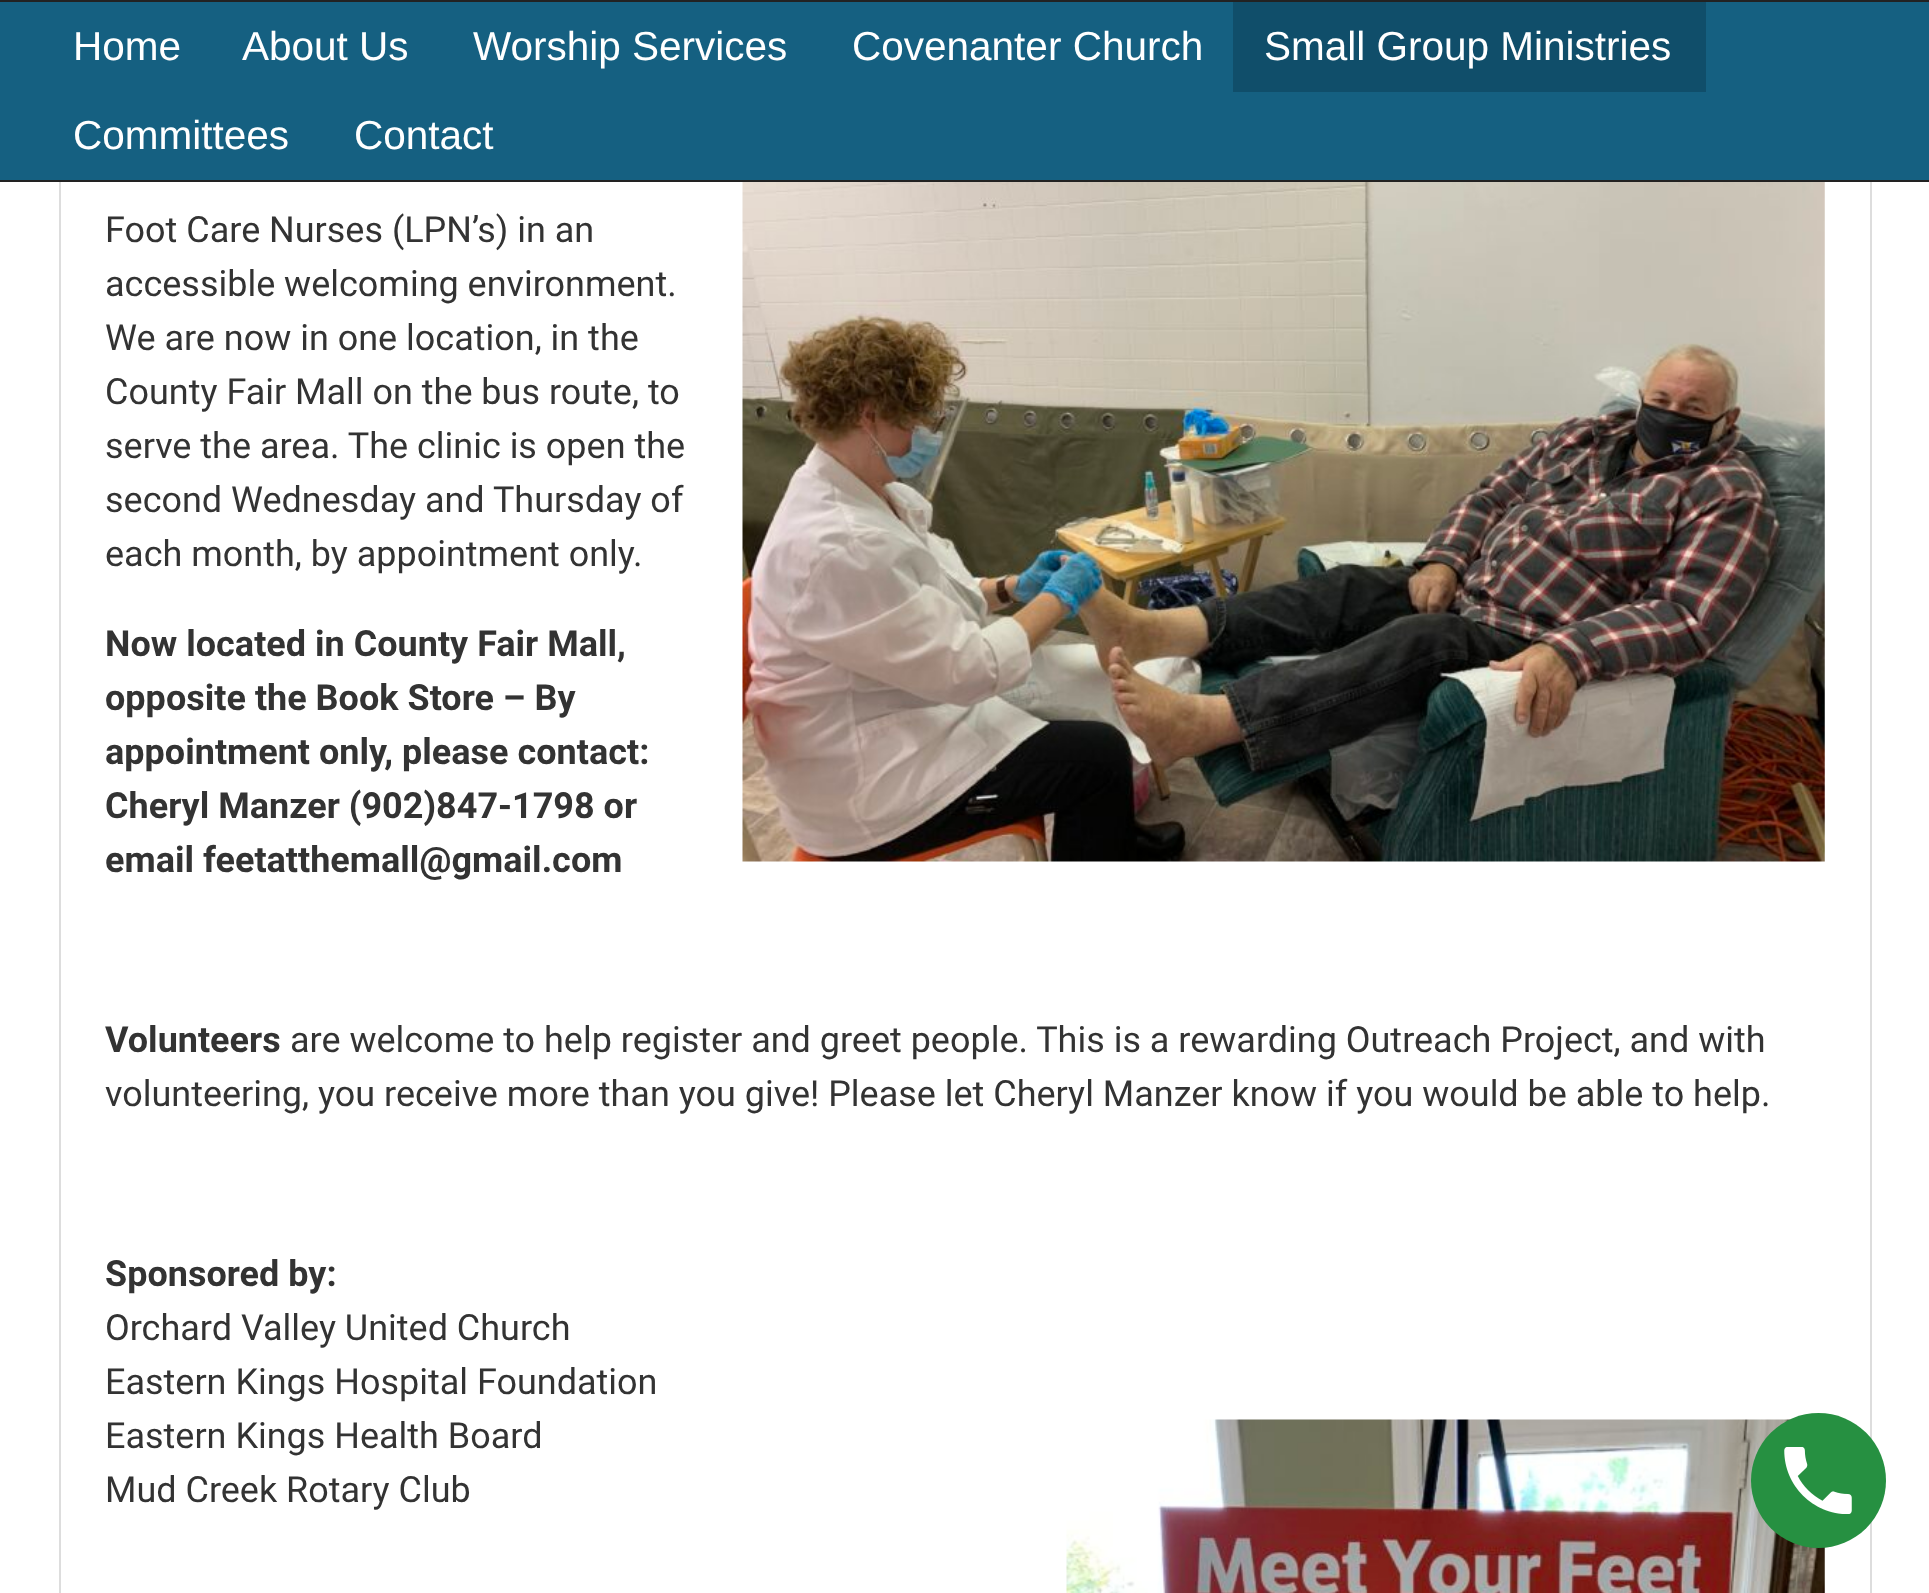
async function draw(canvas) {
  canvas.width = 1929
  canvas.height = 1593
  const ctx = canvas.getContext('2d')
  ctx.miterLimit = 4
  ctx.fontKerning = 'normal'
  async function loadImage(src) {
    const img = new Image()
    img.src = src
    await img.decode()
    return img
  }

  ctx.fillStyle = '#fff'
  ctx.fillRect(0, 0, 1929, 1593)
  ctx.strokeStyle = '#ddd'
  ctx.lineWidth = 2
  ctx.strokeRect(60, -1, 1811, 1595)
  ctx.fillStyle = '#156081'
  ctx.fillRect(45, 2, 1884, 178)
  ctx.strokeStyle = '#222'
  ctx.strokeRect(1, 1, 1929, 180)
  ctx.fillRect(0, 2, 45, 178)
  ctx.font = '40.5px Liberation Sans'
  ctx.fillStyle = '#fff'
  ctx.fillText('Home', 73, 60)
  ctx.fillText('About Us', 242, 60)
  ctx.fillText('Worship Services', 473, 60)
  ctx.fillText('Covenanter Church', 852, 60)
  ctx.fillStyle = '#104e6a'
  ctx.fillRect(1233, 2, 473, 90)
  ctx.fillStyle = '#fff'
  ctx.fillText('Small Group Ministries', 1264, 60)
  ctx.fillText('Committees', 73, 149)
  ctx.fillText('Contact', 354, 149)
  ctx.font = '36px Roboto'
  ctx.fillStyle = '#333'
  ctx.fillText('Foot Care Nurses (LPN’s) in an', 105, 242)
  ctx.fillText('accessible welcoming environment.', 105, 296)
  ctx.fillText('We are now in one location, in the', 105, 350)
  ctx.fillText('County Fair Mall on the bus route, to', 105, 404)
  ctx.fillText('serve the area. The clinic is open the', 105, 458)
  ctx.fillText('second Wednesday and Thursday of', 105, 512)
  ctx.fillText('each month, by appointment only.', 105, 566)
  ctx.drawImage(await loadImage('image0.png'), 742, 182, 1083, 680)
  ctx.font = 'bold 36px Roboto'
  ctx.fillText('Now located in County Fair Mall,', 105, 656)
  ctx.fillText('opposite the Book Store – By', 105, 710)
  ctx.fillText('appointment only, please contact:', 105, 764)
  ctx.fillText('Cheryl Manzer (902)847-1798 or', 105, 818)
  ctx.fillText('email feetatthemall@gmail.com', 105, 872)
  ctx.fillText('Volunteers', 105, 1052)
  ctx.font = '36px Roboto'
  ctx.fillText('are welcome to help register and greet people. This is a rewarding Outreach Project, and with', 290, 1052)
  ctx.fillText('volunteering, you receive more than you give! Please let Cheryl Manzer know if you would be able to help.', 105, 1106)
  ctx.font = 'bold 36px Roboto'
  ctx.fillText('Sponsored by:', 105, 1286)
  ctx.font = '36px Roboto'
  ctx.fillText('Orchard Valley United Church', 105, 1340)
  ctx.fillText('Eastern Kings Hospital Foundation', 105, 1394)
  ctx.fillText('Eastern Kings Health Board', 105, 1448)
  ctx.drawImage(await loadImage('image1.png'), 1066, 1419, 759, 174)
  ctx.fillText('Mud Creek Rotary Club', 105, 1502)
  ctx.fillStyle = '#269041'
  ctx.beginPath()
  ctx.arc(1818.5, 1480.5, 67.5, 0, 2 * Math.PI)
  ctx.fill()
  ctx.drawImage(await loadImage('image2.png'), 1784, 1447, 68, 67)
}

draw(document.querySelector('canvas'))
